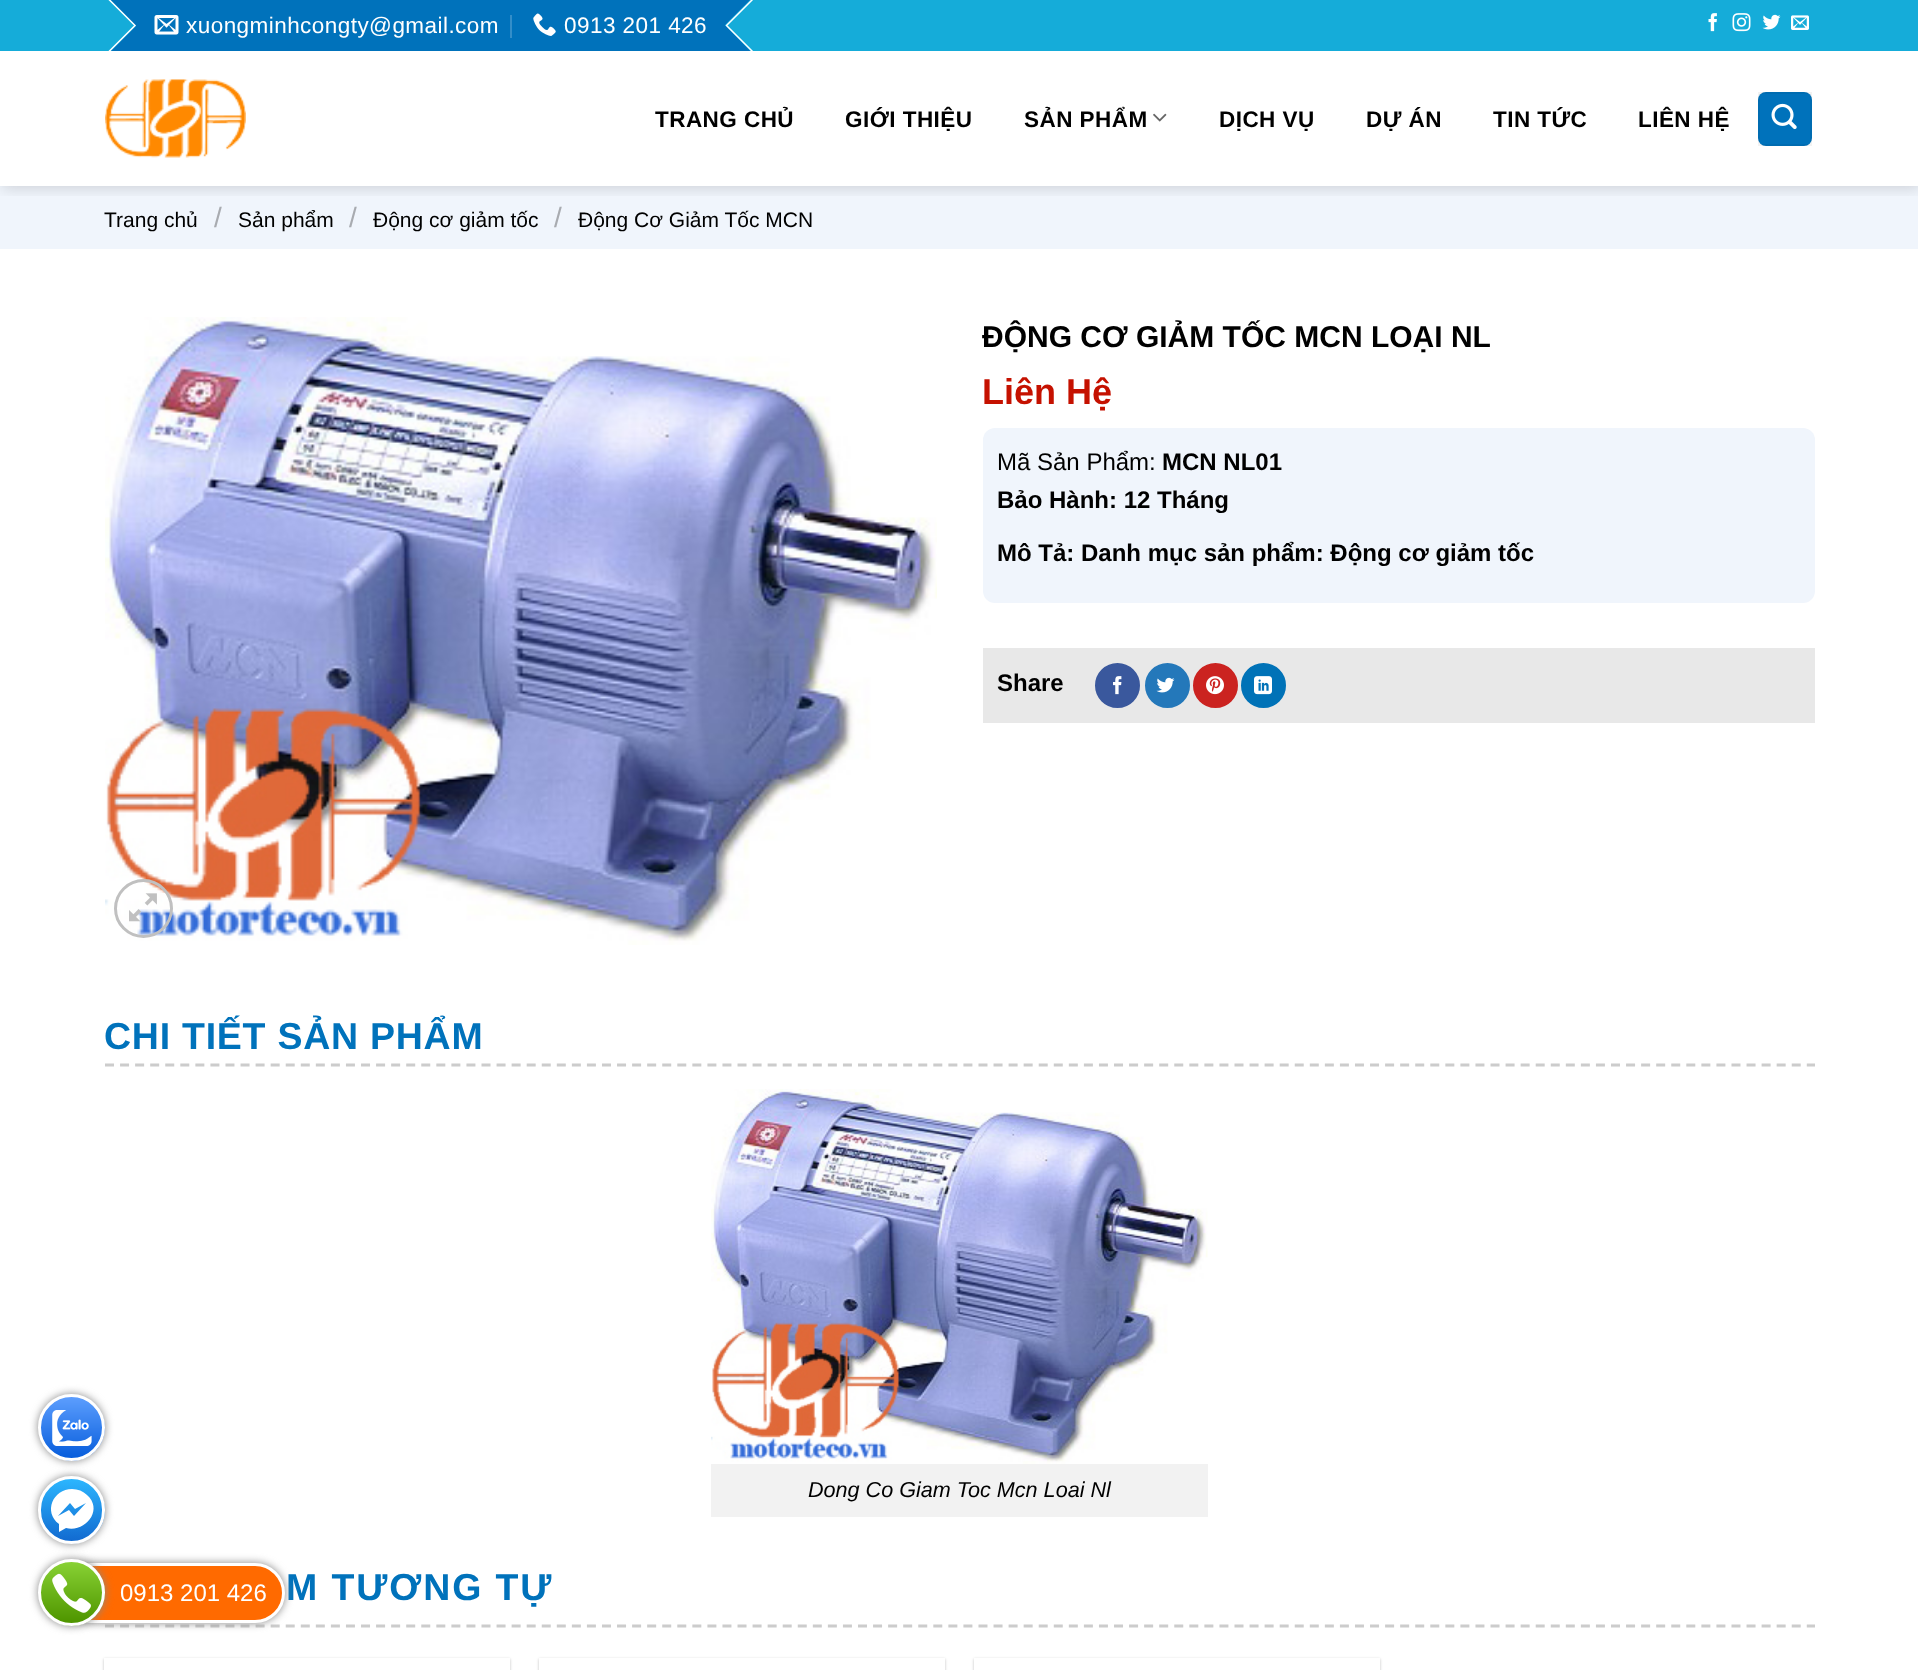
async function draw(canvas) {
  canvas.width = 1918
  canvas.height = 1670
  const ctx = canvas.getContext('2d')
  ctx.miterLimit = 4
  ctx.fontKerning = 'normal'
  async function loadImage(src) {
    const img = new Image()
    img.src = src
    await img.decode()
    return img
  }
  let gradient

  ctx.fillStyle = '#fff'
  ctx.fillRect(0, 0, 1918, 1670)
  ctx.fillStyle = '#f0f5fc'
  ctx.fillRect(0, 186, 1918, 63)
  ctx.save()
  ctx.beginPath()
  ctx.rect(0, 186, 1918, 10)
  ctx.clip()
  ctx.fillStyle = '#00000026'
  ctx.filter = 'blur(7.5px)'
  ctx.beginPath()
  ctx.rect(2, 2, 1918, 186)
  ctx.fill()
  ctx.filter = 'none'
  ctx.restore()
  ctx.fillStyle = '#15acd9'
  ctx.fillRect(0, 0, 1918, 51)
  ctx.fillStyle = '#0072bb'
  ctx.fillRect(110, 0, 641, 51)
  ctx.save()
  ctx.beginPath()
  ctx.rect(105, 0, 653, 51)
  ctx.clip()
  ctx.fillStyle = '#15acd9'
  ctx.beginPath()
  ctx.moveTo(100, -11)
  ctx.lineTo(136, 26)
  ctx.lineTo(100, 62)
  ctx.lineTo(64, 26)
  ctx.closePath()
  ctx.fill()
  ctx.beginPath()
  ctx.moveTo(100, -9.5)
  ctx.lineTo(135, 25.5)
  ctx.lineTo(100, 60.5)
  ctx.lineTo(64.5, 25.5)
  ctx.closePath()
  ctx.strokeStyle = '#fff'
  ctx.lineWidth = 1.5
  ctx.stroke()
  ctx.restore()
  ctx.drawImage(await loadImage('image0.png'), 154, 15, 25, 20)
  ctx.letterSpacing = '0.45px'
  ctx.font = '22.5px Liberation Sans'
  ctx.fillStyle = '#fff'
  ctx.fillText('xuongminhcongty@gmail.com', 186, 33)
  ctx.fillStyle = '#338ec9'
  ctx.fillRect(510, 15, 2, 23)
  ctx.drawImage(await loadImage('image1.png'), 533, 13, 23, 23)
  ctx.fillStyle = '#fff'
  ctx.fillText('0913 201 426', 564, 33)
  ctx.save()
  ctx.beginPath()
  ctx.rect(105, 0, 653, 51)
  ctx.clip()
  ctx.fillStyle = '#15acd9'
  ctx.beginPath()
  ctx.moveTo(761, -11)
  ctx.lineTo(797, 25)
  ctx.lineTo(761, 62)
  ctx.lineTo(725, 25)
  ctx.closePath()
  ctx.fill()
  ctx.beginPath()
  ctx.moveTo(761.5, -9.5)
  ctx.lineTo(796.5, 25.5)
  ctx.lineTo(761.5, 60.5)
  ctx.lineTo(726.5, 25.5)
  ctx.closePath()
  ctx.strokeStyle = '#fff'
  ctx.lineWidth = 1.5
  ctx.stroke()
  ctx.restore()
  ctx.drawImage(await loadImage('image2.png'), 1708, 13, 9, 19)
  ctx.drawImage(await loadImage('image3.png'), 1732, 13, 19, 19)
  ctx.drawImage(await loadImage('image4.png'), 1762, 14, 19, 16)
  ctx.drawImage(await loadImage('image5.png'), 1791, 15, 18, 15)
  ctx.drawImage(await loadImage('image6.png'), 105, 79, 141, 79)
  ctx.font = 'bold 22.5px Liberation Sans'
  ctx.fillStyle = '#000'
  ctx.fillText('TRANG CHỦ', 655, 127)
  ctx.fillText('GIỚI THIỆU', 845, 127)
  ctx.fillText('SẢN PHẨM', 1024, 127)
  ctx.drawImage(await loadImage('image7.png'), 1153, 113, 14, 9)
  ctx.fillText('DỊCH VỤ', 1219, 127)
  ctx.fillText('DỰ ÁN', 1366, 127)
  ctx.fillText('TIN TỨC', 1493, 127)
  ctx.fillText('LIÊN HỆ', 1638, 127)
  ctx.fillStyle = '#0072bb'
  ctx.beginPath()
  ctx.roundRect(1758, 92, 54, 54, 8)
  ctx.fill()
  ctx.strokeStyle = '#0000000d'
  ctx.lineWidth = 2
  ctx.strokeRect(1759, 93, 52, 52)
  ctx.drawImage(await loadImage('image8.png'), 1771, 103, 26, 27)
  ctx.letterSpacing = '0px'
  ctx.font = '21px Liberation Sans'
  ctx.fillStyle = '#000'
  ctx.fillText('Trang chủ', 104, 227)
  ctx.font = '28px Liberation Sans'
  ctx.fillStyle = '#a8abb0'
  ctx.fillText('/', 214, 227)
  ctx.font = '21px Liberation Sans'
  ctx.fillStyle = '#000'
  ctx.fillText('Sản phẩm', 238, 227)
  ctx.font = '28px Liberation Sans'
  ctx.fillStyle = '#a8abb0'
  ctx.fillText('/', 349, 227)
  ctx.font = '21px Liberation Sans'
  ctx.fillStyle = '#000'
  ctx.fillText('Động cơ giảm tốc', 373, 227)
  ctx.font = '28px Liberation Sans'
  ctx.fillStyle = '#a8abb0'
  ctx.fillText('/', 554, 227)
  ctx.font = '21px Liberation Sans'
  ctx.fillStyle = '#000'
  ctx.fillText('Động Cơ Giảm Tốc MCN', 578, 227)
  ctx.drawImage(await loadImage('image9.png'), 105, 317, 832, 628)
  ctx.beginPath()
  ctx.arc(143.5, 908.5, 28, 0, 2 * Math.PI)
  ctx.strokeStyle = '#c0c0c0'
  ctx.lineWidth = 3
  ctx.stroke()
  ctx.drawImage(await loadImage('image10.png'), 129, 893, 28, 29)
  ctx.font = 'bold 30px Liberation Sans'
  ctx.fillText('ĐỘNG CƠ GIẢM TỐC MCN LOẠI NL', 982, 347)
  ctx.font = 'bold 36px Liberation Sans'
  ctx.fillStyle = '#c51100'
  ctx.fillText('Liên Hệ', 982, 404)
  ctx.fillStyle = '#f0f5fc'
  ctx.beginPath()
  ctx.roundRect(983, 428, 832, 175, 12)
  ctx.fill()
  ctx.font = '24px Liberation Sans'
  ctx.fillStyle = '#000'
  ctx.fillText('Mã Sản Phẩm:', 997, 470)
  ctx.font = 'bold 24px Liberation Sans'
  ctx.fillText('MCN NL01', 1162, 470)
  ctx.fillText('Bảo Hành: 12 Tháng', 997, 508)
  ctx.fillText('Mô Tả: Danh mục sản phẩm: Động cơ giảm tốc', 997, 561)
  ctx.fillStyle = '#e8e8e8'
  ctx.fillRect(983, 648, 832, 75)
  ctx.fillStyle = '#000'
  ctx.fillText('Share', 997, 691)
  ctx.fillStyle = '#3a589d'
  ctx.beginPath()
  ctx.arc(1117.5, 685.5, 21.5, 0, 2 * Math.PI)
  ctx.fill()
  ctx.strokeStyle = '#3a589d'
  ctx.lineWidth = 2
  ctx.stroke()
  ctx.drawImage(await loadImage('image11.png'), 1113, 676, 9, 19)
  ctx.fillStyle = '#2478ba'
  ctx.beginPath()
  ctx.arc(1167.5, 685.5, 21.5, 0, 2 * Math.PI)
  ctx.fill()
  ctx.strokeStyle = '#2478ba'
  ctx.stroke()
  ctx.drawImage(await loadImage('image12.png'), 1156, 677, 19, 16)
  ctx.fillStyle = '#cb2320'
  ctx.beginPath()
  ctx.arc(1215.5, 685.5, 21.5, 0, 2 * Math.PI)
  ctx.fill()
  ctx.strokeStyle = '#cb2320'
  ctx.stroke()
  ctx.drawImage(await loadImage('image13.png'), 1206, 676, 18, 19)
  ctx.fillStyle = '#0072b7'
  ctx.beginPath()
  ctx.arc(1263.5, 685.5, 21.5, 0, 2 * Math.PI)
  ctx.fill()
  ctx.strokeStyle = '#0072b7'
  ctx.stroke()
  ctx.drawImage(await loadImage('image14.png'), 1254, 676, 18, 19)
  ctx.beginPath()
  ctx.moveTo(105, 1065)
  ctx.lineTo(1815, 1065)
  ctx.strokeStyle = '#ccc'
  ctx.lineWidth = 3
  ctx.setLineDash([9, 6.06])
  ctx.stroke()
  ctx.letterSpacing = '0.75px'
  ctx.font = 'bold 37.5px Liberation Sans'
  ctx.fillStyle = '#0072bb'
  ctx.fillText('CHI TIẾT SẢN PHẨM', 104, 1049)
  ctx.drawImage(await loadImage('image15.png'), 711, 1089, 497, 375)
  ctx.fillStyle = '#f2f2f2'
  ctx.fillRect(711, 1464, 497, 53)
  ctx.letterSpacing = '0px'
  ctx.font = 'italic 21.6px Liberation Sans'
  ctx.fillStyle = '#000'
  ctx.fillText('Dong Co Giam Toc Mcn Loai Nl', 808, 1497)
  ctx.beginPath()
  ctx.moveTo(105, 1626)
  ctx.lineTo(1815, 1626)
  ctx.stroke()
  ctx.letterSpacing = '1.9px'
  ctx.font = 'bold 37.5px Liberation Sans'
  ctx.fillStyle = '#0072bb'
  ctx.fillText('M TƯƠNG TỰ', 286, 1600)
  ctx.save()
  ctx.beginPath()
  ctx.moveTo(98, 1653)
  ctx.lineTo(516, 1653)
  ctx.lineTo(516, 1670)
  ctx.lineTo(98, 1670)
  ctx.closePath()
  ctx.moveTo(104, 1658)
  ctx.lineTo(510, 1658)
  ctx.lineTo(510, 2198)
  ctx.lineTo(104, 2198)
  ctx.closePath()
  ctx.clip('evenodd')
  ctx.fillStyle = '#0000003d'
  ctx.filter = 'blur(1.5px)'
  ctx.beginPath()
  ctx.rect(104, 1659, 406, 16)
  ctx.fill()
  ctx.filter = 'none'
  ctx.restore()
  ctx.save()
  ctx.beginPath()
  ctx.moveTo(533, 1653)
  ctx.lineTo(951, 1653)
  ctx.lineTo(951, 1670)
  ctx.lineTo(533, 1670)
  ctx.closePath()
  ctx.moveTo(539, 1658)
  ctx.lineTo(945, 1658)
  ctx.lineTo(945, 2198)
  ctx.lineTo(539, 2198)
  ctx.closePath()
  ctx.clip('evenodd')
  ctx.fillStyle = '#0000003d'
  ctx.filter = 'blur(1.5px)'
  ctx.beginPath()
  ctx.rect(539, 1659, 406, 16)
  ctx.fill()
  ctx.filter = 'none'
  ctx.restore()
  ctx.save()
  ctx.beginPath()
  ctx.moveTo(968, 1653)
  ctx.lineTo(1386, 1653)
  ctx.lineTo(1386, 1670)
  ctx.lineTo(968, 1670)
  ctx.closePath()
  ctx.moveTo(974, 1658)
  ctx.lineTo(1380, 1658)
  ctx.lineTo(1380, 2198)
  ctx.lineTo(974, 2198)
  ctx.closePath()
  ctx.clip('evenodd')
  ctx.fillStyle = '#0000003d'
  ctx.filter = 'blur(1.5px)'
  ctx.beginPath()
  ctx.rect(974, 1659, 406, 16)
  ctx.fill()
  ctx.filter = 'none'
  ctx.restore()
  ctx.fillStyle = '#888'
  ctx.filter = 'blur(4px)'
  ctx.beginPath()
  ctx.roundRect(38, 1394, 67, 67, 33.5)
  ctx.fill()
  ctx.filter = 'none'
  ctx.drawImage(await loadImage('image16.png'), 39, 1395, 66, 66)
  ctx.beginPath()
  ctx.arc(71.5, 1427.5, 32, 0, 2 * Math.PI)
  ctx.strokeStyle = '#fff'
  ctx.setLineDash([])
  ctx.stroke()
  ctx.filter = 'blur(4px)'
  ctx.beginPath()
  ctx.roundRect(38, 1476, 67, 68, 33.5)
  ctx.fill()
  ctx.filter = 'none'
  gradient = ctx.createLinearGradient(71, 1543, 71, 1478)
  gradient.addColorStop(0, '#1168cf')
  gradient.addColorStop(1, '#2cb7ff')
  ctx.fillStyle = gradient
  ctx.beginPath()
  ctx.arc(72, 1510.5, 33, 0, 2 * Math.PI)
  ctx.fill()
  ctx.fillStyle = '#fff'
  ctx.beginPath()
  ctx.moveTo(72, 1489)
  ctx.bezierCurveTo(53, 1489, 43, 1512, 59, 1524)
  ctx.lineTo(59, 1532)
  ctx.lineTo(66, 1528)
  ctx.bezierCurveTo(85, 1533, 104, 1510, 87, 1495)
  ctx.bezierCurveTo(83, 1491, 78, 1489, 72, 1489)
  ctx.closePath()
  ctx.moveTo(74, 1516)
  ctx.lineTo(69, 1510)
  ctx.lineTo(58, 1516)
  ctx.lineTo(70, 1503)
  ctx.lineTo(75, 1509)
  ctx.lineTo(86, 1503)
  ctx.closePath()
  ctx.fill('evenodd')
  ctx.beginPath()
  ctx.roundRect(39.5, 1477.5, 64, 65, 32)
  ctx.stroke()
  ctx.fillStyle = '#888'
  ctx.filter = 'blur(4px)'
  ctx.beginPath()
  ctx.roundRect(60, 1563, 225, 60, 30)
  ctx.fill()
  ctx.filter = 'none'
  ctx.fillStyle = '#ff6a00'
  ctx.beginPath()
  ctx.roundRect(61.5, 1564.5, 222, 57, 28.5)
  ctx.fill()
  ctx.stroke()
  ctx.fillStyle = '#888'
  ctx.filter = 'blur(4px)'
  ctx.beginPath()
  ctx.roundRect(38, 1559, 67, 67, 33.5)
  ctx.fill()
  ctx.filter = 'none'
  ctx.drawImage(await loadImage('image17.png'), 39, 1560, 66, 66)
  ctx.beginPath()
  ctx.arc(71.5, 1592.5, 32, 0, 2 * Math.PI)
  ctx.stroke()
  ctx.letterSpacing = '0px'
  ctx.font = '24px Liberation Sans'
  ctx.fillStyle = '#fff'
  ctx.fillText('0913 201 426', 120, 1601)
}

draw(document.querySelector('canvas'))
